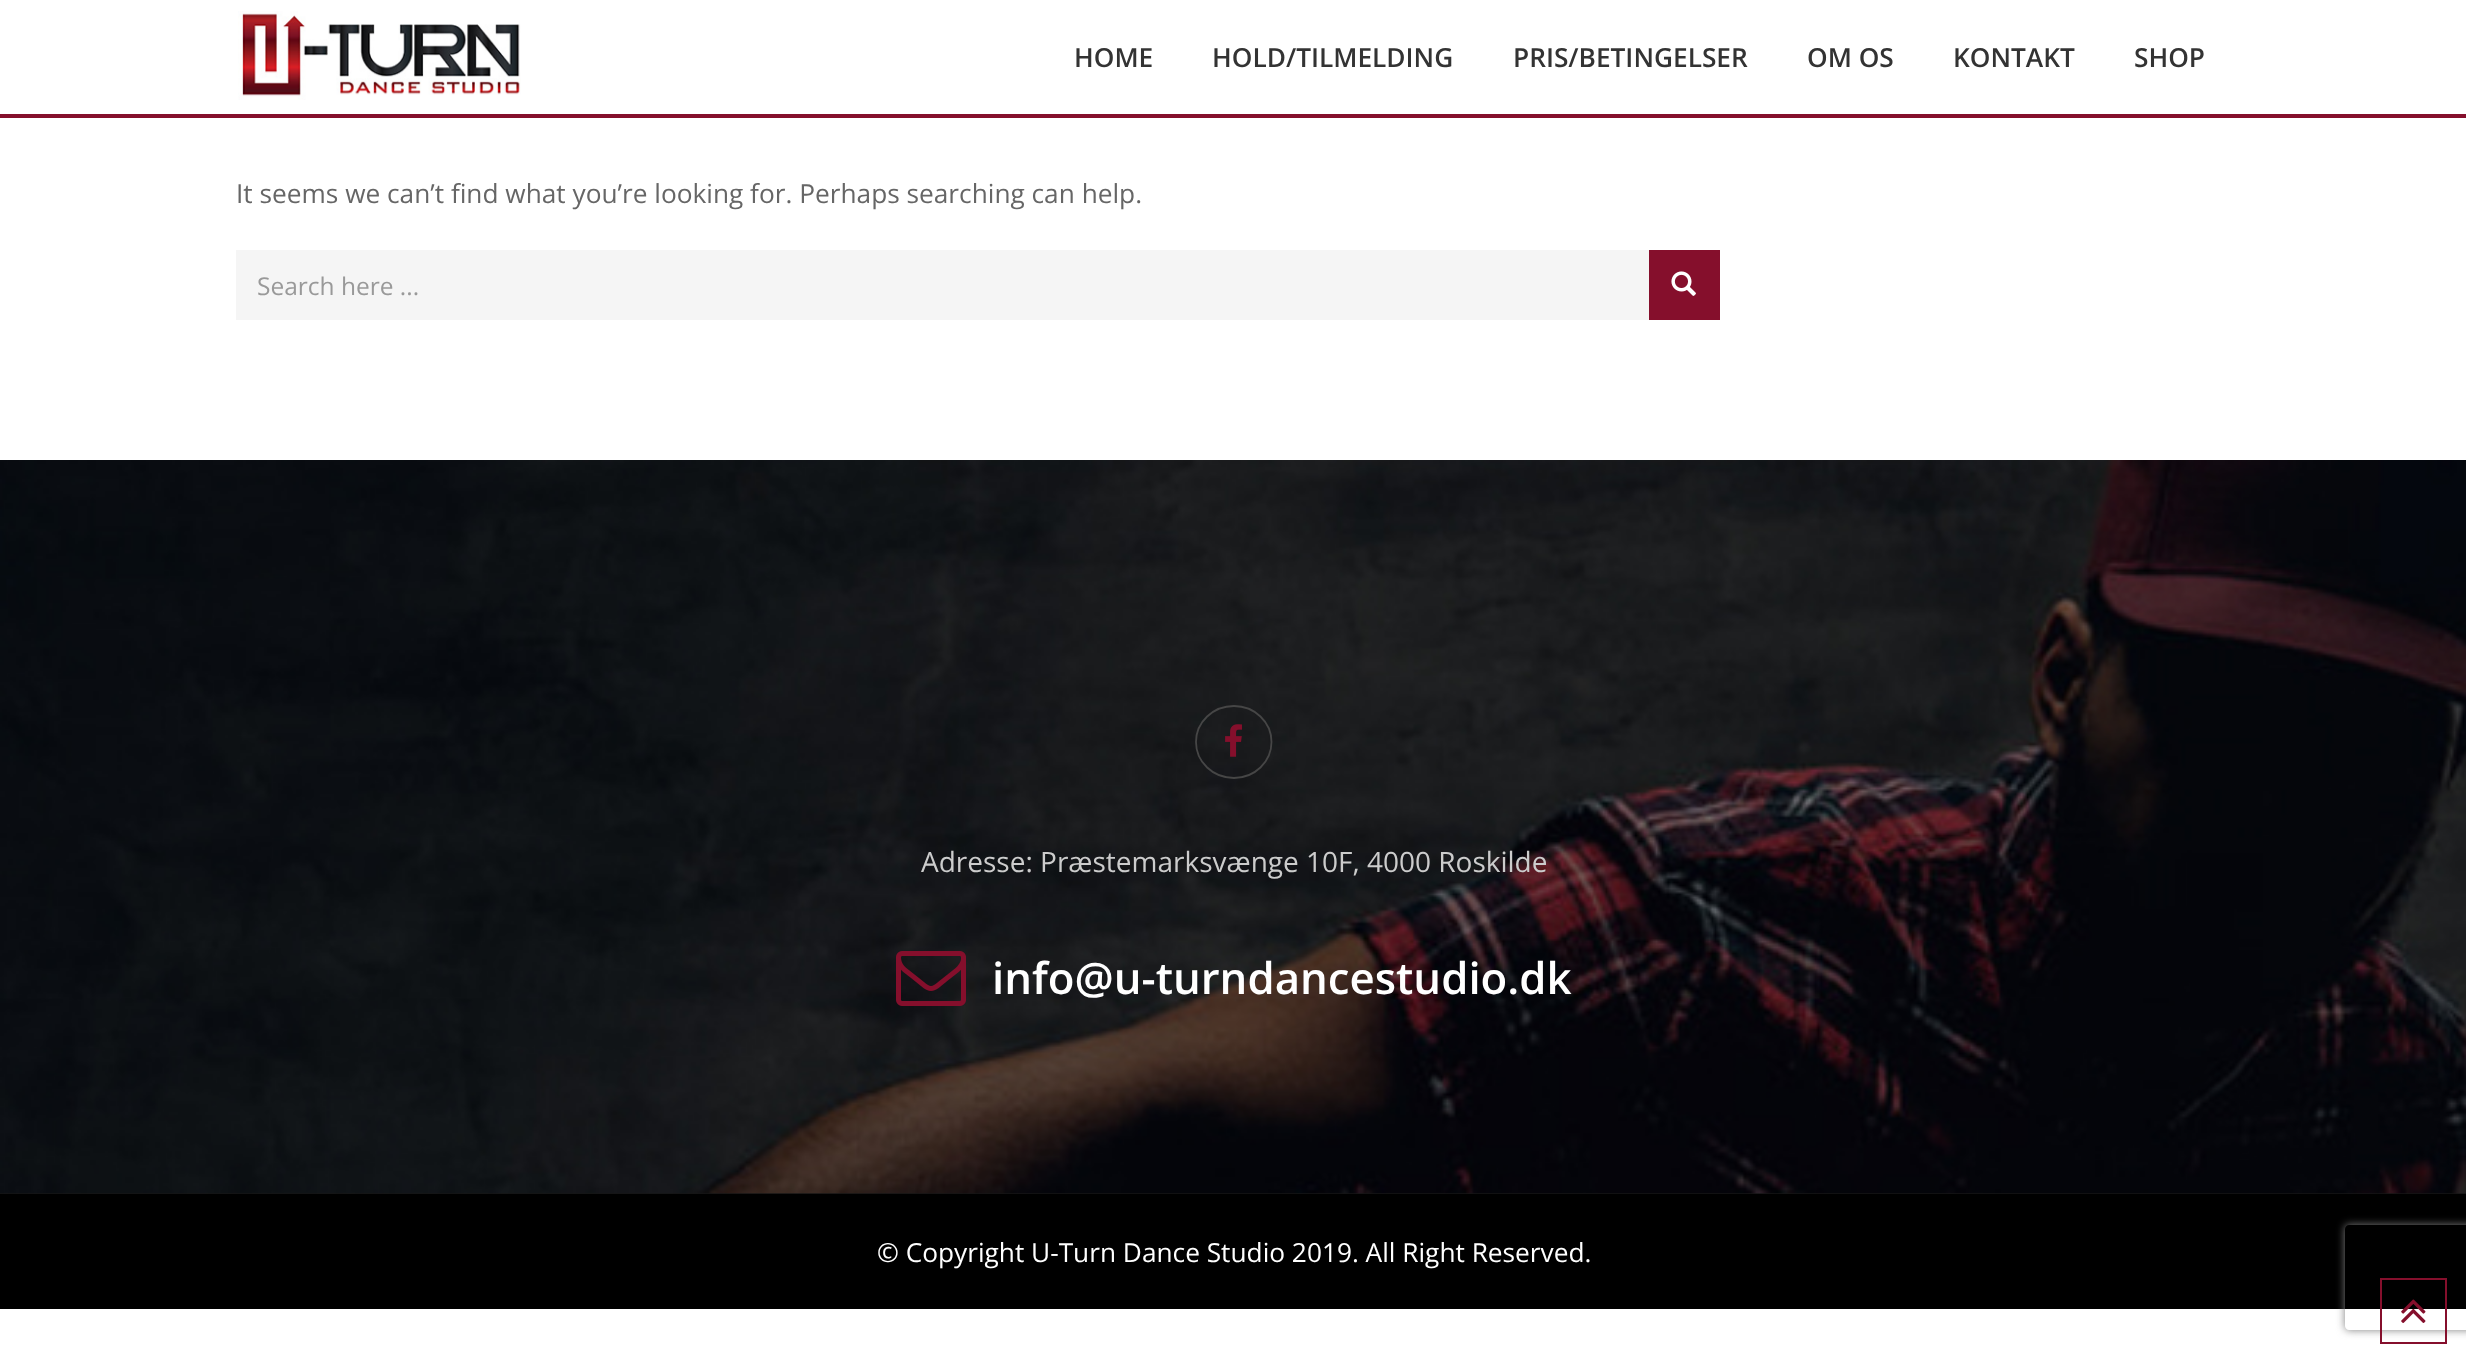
async function draw(canvas) {
  canvas.width = 2466
  canvas.height = 1353
  const ctx = canvas.getContext('2d')
  ctx.miterLimit = 4
  ctx.fontKerning = 'normal'
  async function loadImage(src) {
    const img = new Image()
    img.src = src
    await img.decode()
    return img
  }

  ctx.fillStyle = '#fff'
  ctx.fillRect(0, 0, 2466, 1353)
  ctx.fillStyle = '#850f2c'
  ctx.fillRect(0, 114, 2466, 4)
  ctx.drawImage(await loadImage('image0.png'), 238, 11, 283, 89)
  ctx.font = '600 26.25px Open Sans'
  ctx.fillStyle = '#333'
  ctx.fillText('HOME', 1074, 67)
  ctx.fillText('HOLD/TILMELDING', 1212, 67)
  ctx.fillText('PRIS/BETINGELSER', 1513, 67)
  ctx.fillText('OM OS', 1807, 67)
  ctx.fillText('KONTAKT', 1953, 67)
  ctx.fillText('SHOP', 2134, 67)
  ctx.font = '26.25px Open Sans'
  ctx.fillStyle = '#666'
  ctx.fillText('It seems we can’t find what you’re looking for. Perhaps searching can help.', 236, 203)
  ctx.fillStyle = '#f5f5f5'
  ctx.fillRect(236, 250, 1413, 70)
  ctx.font = '24.5px Open Sans'
  ctx.fillStyle = '#999'
  ctx.fillText('Search here ...', 257, 295)
  ctx.fillStyle = '#850f2c'
  ctx.fillRect(1649, 250, 71, 70)
  ctx.drawImage(await loadImage('image1.png'), 1671, 271, 25, 25)
  ctx.fillStyle = '#161616'
  ctx.fillRect(0, 1193, 2466, 1)
  ctx.drawImage(await loadImage('image2.png'), 0, 460, 2466, 734)
  ctx.beginPath()
  ctx.moveTo(1234, 706)
  ctx.bezierCurveTo(1254.5, 706, 1271.5, 722, 1271.5, 742)
  ctx.bezierCurveTo(1271.5, 762, 1254.5, 778, 1234, 778)
  ctx.bezierCurveTo(1213, 778, 1196, 762, 1196, 742)
  ctx.bezierCurveTo(1196, 722, 1213, 706, 1234, 706)
  ctx.closePath()
  ctx.strokeStyle = '#464646'
  ctx.lineWidth = 1.8
  ctx.stroke()
  ctx.drawImage(await loadImage('image3.png'), 1225, 724, 17, 33)
  ctx.font = '28px Open Sans'
  ctx.fillStyle = '#ccc'
  ctx.fillText('Adresse: Præstemarksvænge 10F, 4000 Roskilde', 921, 872)
  ctx.drawImage(await loadImage('image4.png'), 896, 951, 70, 55)
  ctx.font = '600 43.75px Open Sans'
  ctx.fillStyle = '#fff'
  ctx.fillText('info@u-turndancestudio.dk', 992, 994)
  ctx.fillStyle = '#000'
  ctx.fillRect(0, 1194, 2466, 115)
  ctx.font = '26.25px Open Sans'
  ctx.fillStyle = '#fff'
  ctx.fillText('© Copyright U-Turn Dance Studio 2019. All Right Reserved.', 877, 1262)
  ctx.save()
  ctx.beginPath()
  ctx.moveTo(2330, 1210)
  ctx.lineTo(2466, 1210)
  ctx.lineTo(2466, 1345)
  ctx.lineTo(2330, 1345)
  ctx.closePath()
  ctx.moveTo(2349, 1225)
  ctx.lineTo(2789, 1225)
  ctx.bezierCurveTo(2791, 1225, 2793, 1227, 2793, 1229)
  ctx.lineTo(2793, 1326)
  ctx.bezierCurveTo(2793, 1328, 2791, 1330, 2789, 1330)
  ctx.lineTo(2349, 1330)
  ctx.bezierCurveTo(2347, 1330, 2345, 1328, 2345, 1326)
  ctx.lineTo(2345, 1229)
  ctx.bezierCurveTo(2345, 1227, 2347, 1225, 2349, 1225)
  ctx.closePath()
  ctx.clip('evenodd')
  ctx.fillStyle = '#808080'
  ctx.filter = 'blur(4.5px)'
  ctx.beginPath()
  ctx.roundRect(2345, 1225, 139, 105, 4)
  ctx.fill()
  ctx.filter = 'none'
  ctx.restore()
  ctx.strokeStyle = '#850f2c'
  ctx.lineWidth = 2
  ctx.strokeRect(2381, 1279, 65, 64)
  ctx.drawImage(await loadImage('image5.png'), 2401, 1299, 25, 24)
}

draw(document.querySelector('canvas'))
